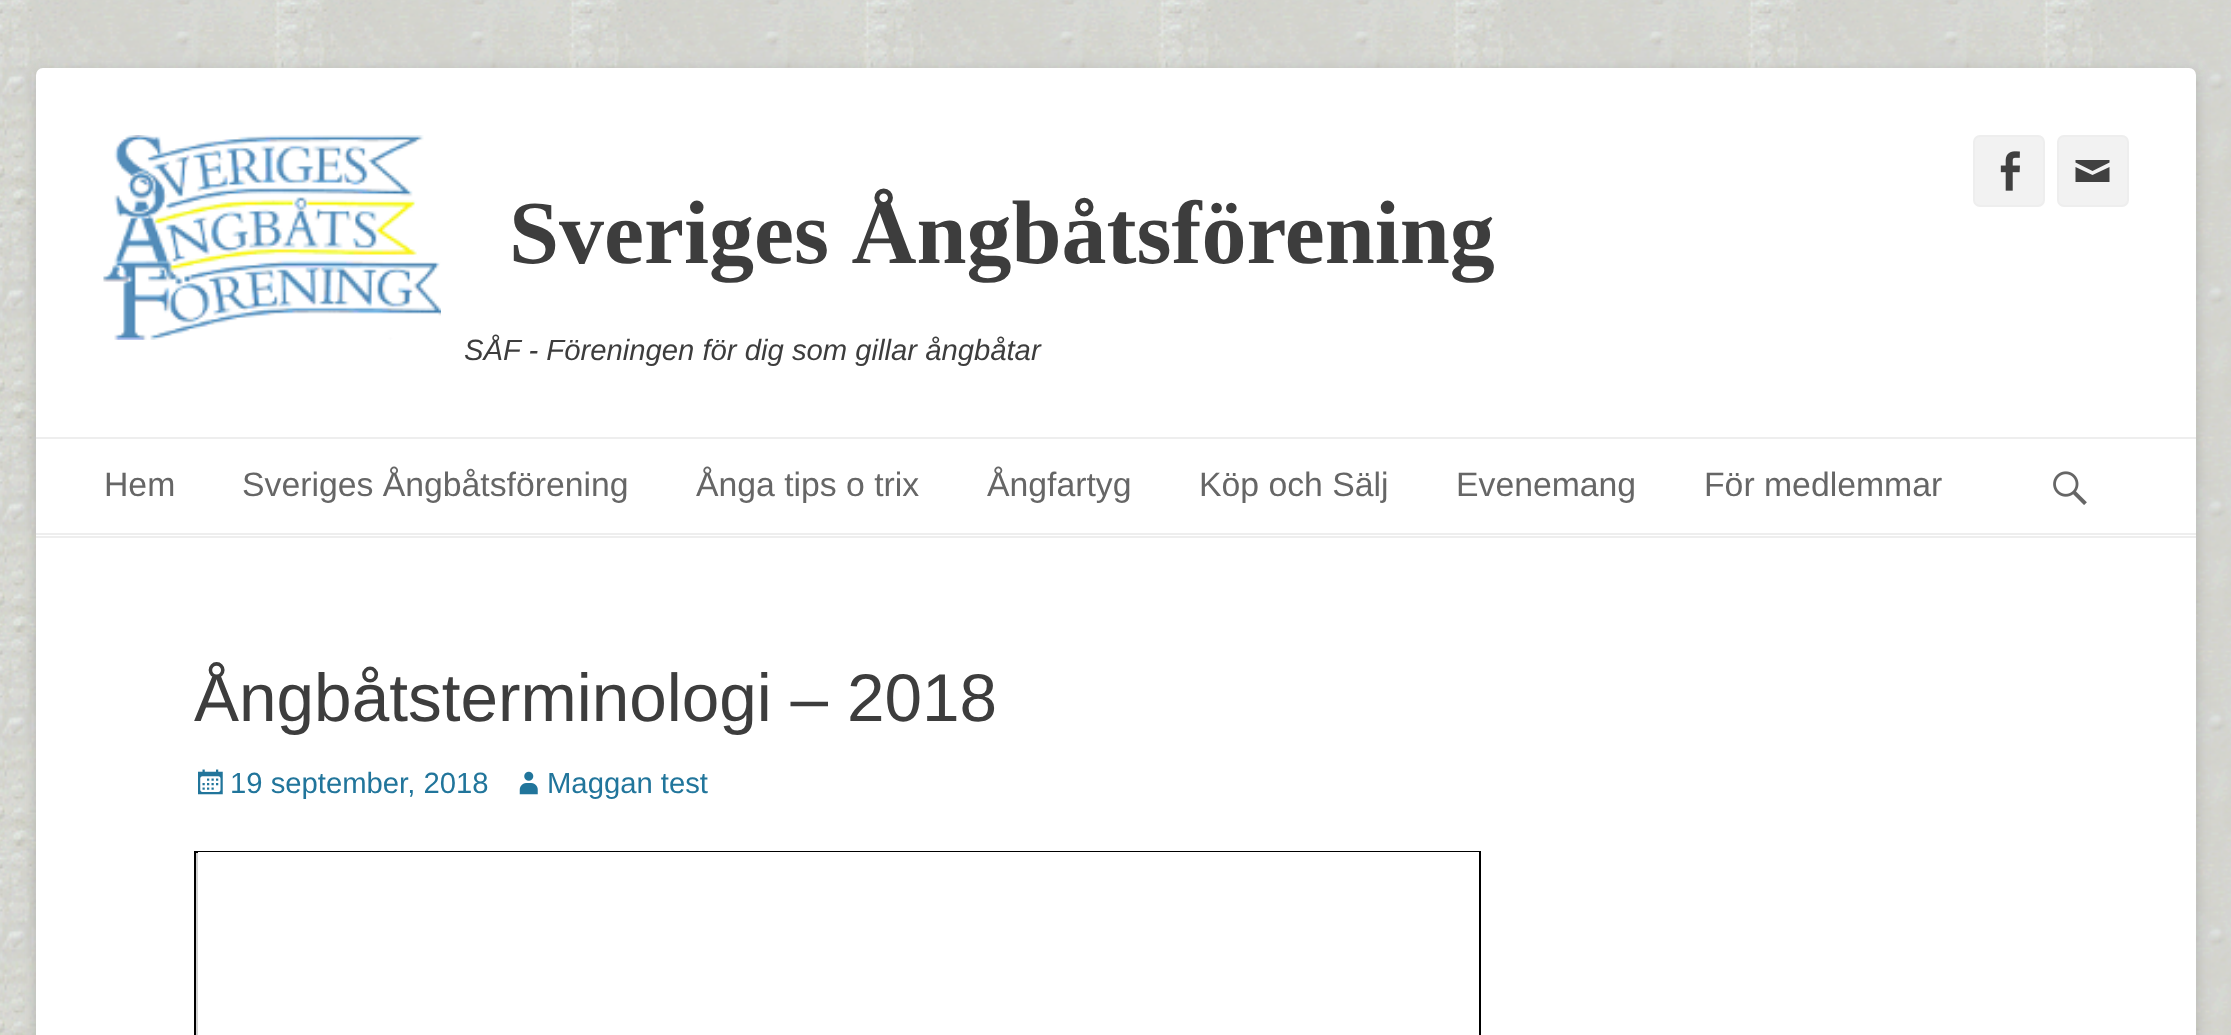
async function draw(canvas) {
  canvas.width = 2231
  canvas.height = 1035
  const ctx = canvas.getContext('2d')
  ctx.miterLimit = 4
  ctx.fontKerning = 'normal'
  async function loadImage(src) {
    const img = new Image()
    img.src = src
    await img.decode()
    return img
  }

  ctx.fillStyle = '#fff'
  ctx.fillRect(0, 0, 2231, 1035)
  ctx.drawImage(await loadImage('image0.png'), 0, 0, 2231, 1035)
  ctx.fillStyle = '#6464644d'
  ctx.filter = 'blur(7px)'
  ctx.beginPath()
  ctx.roundRect(36, 72, 2160, 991, 7)
  ctx.fill()
  ctx.filter = 'none'
  ctx.fillStyle = '#fff'
  ctx.beginPath()
  ctx.roundRect(36, 68, 2160, 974, 7)
  ctx.fill()
  ctx.fillStyle = '#f2f2f2'
  ctx.beginPath()
  ctx.roundRect(1974, 136, 70, 70, 6)
  ctx.fill()
  ctx.strokeStyle = '#eee'
  ctx.lineWidth = 2
  ctx.stroke()
  ctx.drawImage(await loadImage('image1.png'), 2000, 151, 20, 40)
  ctx.beginPath()
  ctx.roundRect(2058, 136, 70, 70, 6)
  ctx.fill()
  ctx.stroke()
  ctx.fillStyle = '#404040'
  ctx.beginPath()
  ctx.moveTo(2075.5, 160)
  ctx.lineTo(2109.5, 160)
  ctx.lineTo(2109.5, 162.5)
  ctx.lineTo(2092.5, 171)
  ctx.lineTo(2075.5, 162.5)
  ctx.closePath()
  ctx.moveTo(2075.5, 167)
  ctx.lineTo(2092.5, 175)
  ctx.lineTo(2109.5, 167)
  ctx.lineTo(2109.5, 182)
  ctx.lineTo(2075.5, 182)
  ctx.closePath()
  ctx.fill()
  ctx.drawImage(await loadImage('image2.png'), 103, 135, 338, 205)
  ctx.font = 'bold 90px Liberation Serif'
  ctx.fillStyle = '#3d3d3d'
  ctx.fillText('Sveriges Ångbåtsförening', 509, 263)
  ctx.font = 'italic 29.25px Liberation Sans'
  ctx.fillText('SÅF - Föreningen för dig som gillar ångbåtar', 464, 360)
  ctx.fillStyle = '#eee'
  ctx.fillRect(36, 437, 2160, 2)
  ctx.fillRect(36, 533, 2160, 2)
  ctx.font = '33.75px Liberation Sans'
  ctx.fillStyle = '#666'
  ctx.fillText('Hem', 104, 496)
  ctx.fillText('Sveriges Ångbåtsförening', 242, 496)
  ctx.fillText('Ånga tips o trix', 696, 496)
  ctx.fillText('Ångfartyg', 987, 496)
  ctx.fillText('Köp och Sälj', 1199, 496)
  ctx.fillText('Evenemang', 1456, 496)
  ctx.fillText('För medlemmar', 1704, 496)
  ctx.drawImage(await loadImage('image3.png'), 2053, 471, 34, 34)
  ctx.fillStyle = '#eee'
  ctx.fillRect(36, 536, 2160, 2)
  ctx.font = '67.5px Liberation Sans'
  ctx.fillStyle = '#3d3d3d'
  ctx.fillText('Ångbåtsterminologi – 2018', 194, 721)
  ctx.drawImage(await loadImage('image4.png'), 198, 769, 25, 26)
  ctx.font = '29.25px Liberation Sans'
  ctx.fillStyle = '#21759b'
  ctx.fillText('19 september, 2018', 230, 793)
  ctx.drawImage(await loadImage('image5.png'), 519, 771, 19, 24)
  ctx.fillText('Maggan test', 547, 793)
  ctx.fillStyle = '#d3d3d3'
  ctx.fillRect(196, 853, 2, 182)
  ctx.strokeStyle = '#000'
  ctx.strokeRect(195, 852, 1285, 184)
  ctx.fillStyle = '#fff'
  ctx.fillRect(198, 852, 1281, 1)
}

draw(document.querySelector('canvas'))
